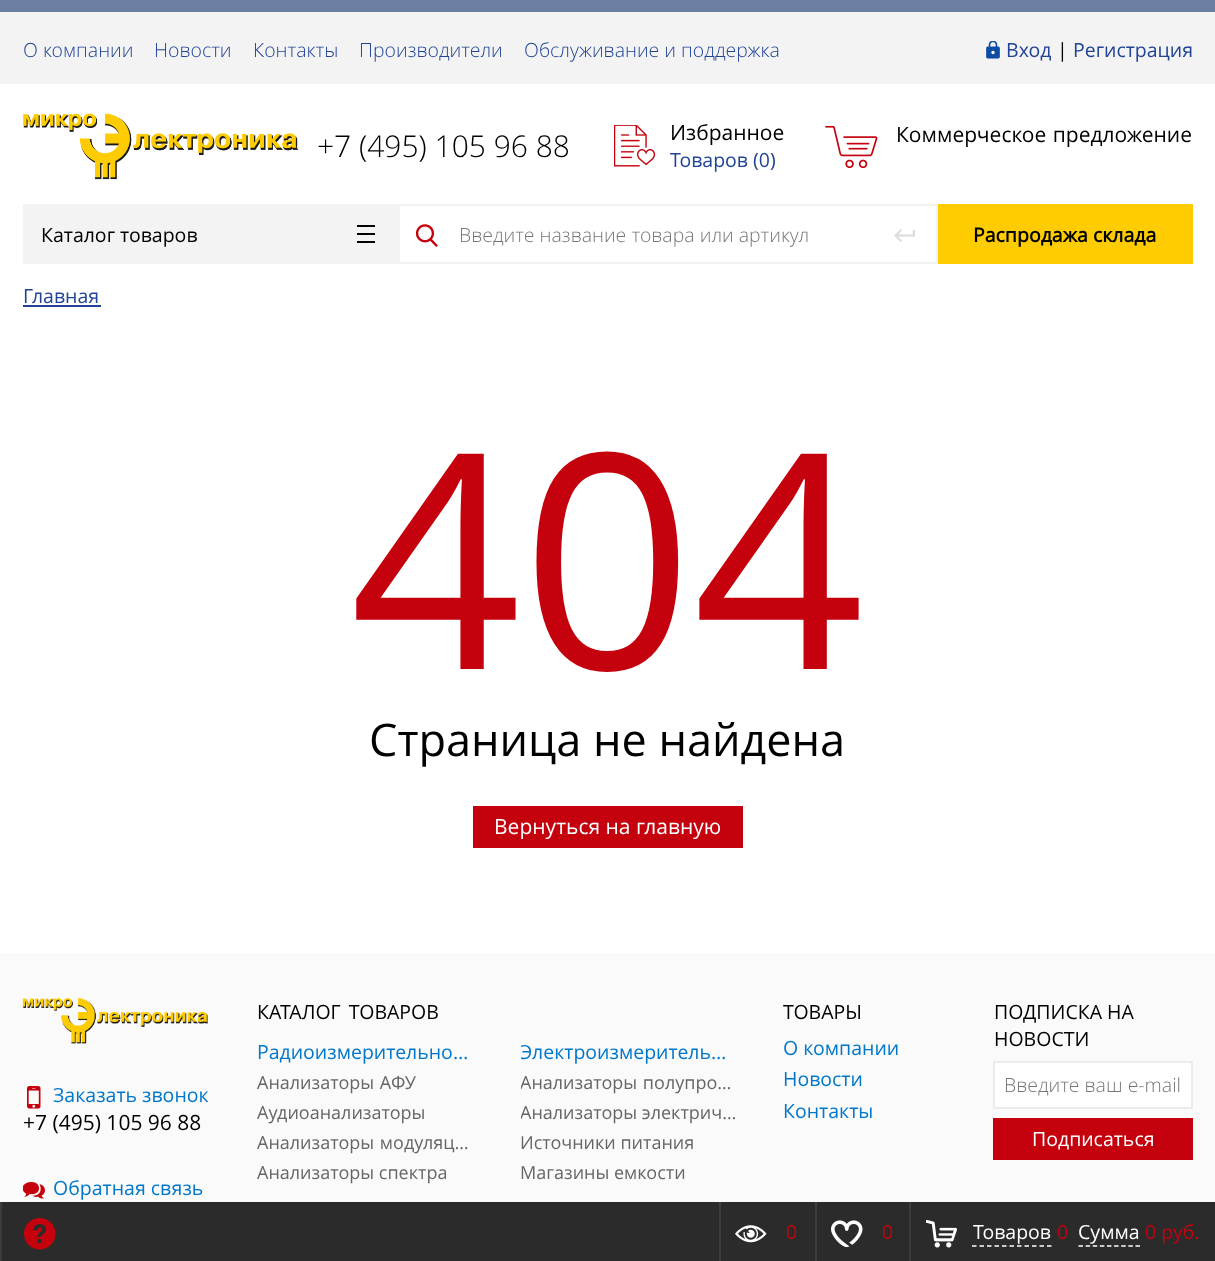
async function draw(canvas) {
  canvas.width = 1215
  canvas.height = 1261
  const ctx = canvas.getContext('2d')
  ctx.miterLimit = 4
  ctx.fontKerning = 'normal'
  async function loadImage(src) {
    const img = new Image()
    img.src = src
    await img.decode()
    return img
  }

  ctx.fillStyle = '#fff'
  ctx.fillRect(0, 0, 1215, 1261)
  ctx.fillStyle = '#6b80a0'
  ctx.fillRect(0, 0, 1215, 12)
  ctx.fillStyle = '#f3f3f3'
  ctx.fillRect(0, 12, 1215, 72)
  ctx.font = '300 19.5px Open Sans'
  ctx.fillStyle = '#214496'
  ctx.fillText('О компании', 23, 57)
  ctx.fillText('Новости', 154, 57)
  ctx.fillText('Контакты', 253, 57)
  ctx.fillText('Производители', 359, 57)
  ctx.fillText('Обслуживание и поддержка', 524, 57)
  ctx.drawImage(await loadImage('image0.png'), 986, 41, 14, 18)
  ctx.font = '19.5px Open Sans'
  ctx.fillText('Вход', 1006, 57)
  ctx.fillStyle = '#000'
  ctx.fillText('|', 1057, 57)
  ctx.fillStyle = '#214496'
  ctx.fillText('Регистрация', 1073, 57)
  ctx.drawImage(await loadImage('image1.png'), 23, 113, 275, 67)
  ctx.font = '300 30px Open Sans'
  ctx.fillStyle = '#000'
  ctx.fillText('+7 (495) 105 96 88', 317, 157)
  ctx.drawImage(await loadImage('image2.png'), 614, 125, 42, 42)
  ctx.font = '21px Open Sans'
  ctx.fillText('Избранное', 670, 140)
  ctx.font = '19.5px Open Sans'
  ctx.fillStyle = '#214496'
  ctx.fillText('Товаров (0)', 670, 167)
  ctx.drawImage(await loadImage('image3.png'), 825, 125, 53, 44)
  ctx.wordSpacing = '1px'
  ctx.font = '21px Open Sans'
  ctx.fillStyle = '#000'
  ctx.fillText('Коммерческое предложение', 896, 142)
  ctx.fillStyle = '#f3f3f3'
  ctx.fillRect(23, 204, 375, 60)
  ctx.wordSpacing = '0px'
  ctx.font = '19.5px Open Sans'
  ctx.fillStyle = '#000'
  ctx.fillText('Каталог товаров', 41, 242)
  ctx.fillRect(357, 225, 18, 2)
  ctx.fillRect(357, 233, 18, 2)
  ctx.fillRect(357, 241, 18, 2)
  ctx.strokeStyle = '#f2f2f2'
  ctx.lineWidth = 2
  ctx.strokeRect(399, 205, 538, 58)
  ctx.drawImage(await loadImage('image4.png'), 416, 224, 22, 23)
  ctx.font = '300 19.5px Open Sans'
  ctx.fillStyle = '#757575'
  ctx.fillText('Введите название товара или артикул', 459, 242)
  ctx.drawImage(await loadImage('image5.png'), 894, 229, 21, 13)
  ctx.fillStyle = '#fecc00'
  ctx.fillRect(938, 204, 255, 60)
  ctx.font = 'bold 19.5px Open Sans'
  ctx.fillStyle = '#000'
  ctx.fillText('Распродажа склада', 973, 242)
  ctx.font = '19.5px Open Sans'
  ctx.fillStyle = '#214496'
  ctx.fillText('Главная', 23, 303)
  ctx.fillRect(23, 305, 78, 2)
  ctx.font = '300px Open Sans'
  ctx.fillStyle = '#c4010c'
  ctx.fillText('404', 350, 669)
  ctx.font = '45px Open Sans'
  ctx.fillStyle = '#000'
  ctx.fillText('Страница не найдена', 369, 756)
  ctx.fillStyle = '#c4010c'
  ctx.fillRect(473, 806, 270, 42)
  ctx.font = '21px Open Sans'
  ctx.fillStyle = '#fff'
  ctx.fillText('Вернуться на главную', 494, 834)
  ctx.fillStyle = '#fafafa'
  ctx.fillRect(0, 953, 1215, 249)
  ctx.drawImage(await loadImage('image6.png'), 22, 998, 186, 46)
  ctx.drawImage(await loadImage('image7.png'), 27, 1086, 14, 23)
  ctx.font = '19.5px Open Sans'
  ctx.fillStyle = '#0077cb'
  ctx.fillText('Заказать звонок', 53, 1102)
  ctx.font = '21px Open Sans'
  ctx.fillStyle = '#000'
  ctx.fillText('+7 (495) 105 96 88', 23, 1130)
  ctx.drawImage(await loadImage('image8.png'), 23, 1182, 22, 17)
  ctx.font = '19.5px Open Sans'
  ctx.fillStyle = '#0077cb'
  ctx.fillText('Обратная связь', 53, 1195)
  ctx.wordSpacing = '3px'
  ctx.fillStyle = '#000'
  ctx.fillText('КАТАЛОГ ТОВАРОВ', 257, 1019)
  ctx.wordSpacing = '1px'
  ctx.fillStyle = '#0077cb'
  ctx.fillText('Радиоизмерительно…', 257, 1059)
  ctx.font = '18px Open Sans'
  ctx.fillStyle = '#666'
  ctx.fillText('Анализаторы АФУ', 257, 1089)
  ctx.wordSpacing = '0px'
  ctx.fillText('Аудиоанализаторы', 257, 1119)
  ctx.wordSpacing = '1px'
  ctx.fillText('Анализаторы модуляц…', 257, 1149)
  ctx.wordSpacing = '0px'
  ctx.fillText('Анализаторы спектра', 257, 1179)
  ctx.save()
  ctx.beginPath()
  ctx.rect(521, 1038, 217, 27)
  ctx.clip()
  ctx.wordSpacing = '1px'
  ctx.font = '19.5px Open Sans'
  ctx.fillStyle = '#0077cb'
  ctx.fillText('Электроизмеритель…', 520, 1059)
  ctx.restore()
  ctx.save()
  ctx.beginPath()
  ctx.rect(521, 1070, 217, 25)
  ctx.clip()
  ctx.wordSpacing = '1px'
  ctx.fillText('Анализаторы полупро…', 520, 1089)
  ctx.restore()
  ctx.save()
  ctx.beginPath()
  ctx.rect(521, 1100, 217, 25)
  ctx.clip()
  ctx.fillText('Анализаторы электрич…', 520, 1119)
  ctx.restore()
  ctx.fillText('Источники питания', 520, 1149)
  ctx.fillText('Магазины емкости', 520, 1179)
  ctx.font = '19.5px Open Sans'
  ctx.fillStyle = '#000'
  ctx.fillText('ТОВАРЫ', 783, 1019)
  ctx.fillStyle = '#0077cb'
  ctx.fillText('О компании', 783, 1055)
  ctx.fillText('Новости', 783, 1086)
  ctx.fillText('Контакты', 783, 1118)
  ctx.fillStyle = '#000'
  ctx.fillText('ПОДПИСКА НА', 994, 1019)
  ctx.fillText('НОВОСТИ', 994, 1046)
  ctx.fillStyle = '#fff'
  ctx.beginPath()
  ctx.rect(994, 1062, 198, 46)
  ctx.fill()
  ctx.strokeStyle = '#ebebeb'
  ctx.stroke()
  ctx.font = '300 19.5px Open Sans'
  ctx.fillStyle = '#757575'
  ctx.fillText('Введите ваш e-mail', 1004, 1092)
  ctx.fillStyle = '#c4010c'
  ctx.fillRect(993, 1118, 200, 42)
  ctx.font = '19.5px Open Sans'
  ctx.fillStyle = '#fff'
  ctx.fillText('Подписаться', 1032, 1146)
  ctx.fillStyle = '#2b2b2b'
  ctx.fillRect(2, 1202, 1213, 59)
  ctx.fillStyle = '#3c3c3c'
  ctx.fillRect(0, 1202, 2, 59)
  ctx.drawImage(await loadImage('image9.png'), 24, 1218, 32, 32)
  ctx.fillRect(719, 1202, 2, 59)
  ctx.drawImage(await loadImage('image10.png'), 735, 1225, 32, 18)
  ctx.fillStyle = '#c4010c'
  ctx.fillText('0', 786, 1239)
  ctx.fillStyle = '#3c3c3c'
  ctx.fillRect(815, 1202, 2, 59)
  ctx.drawImage(await loadImage('image11.png'), 831, 1220, 32, 28)
  ctx.fillStyle = '#c4010c'
  ctx.fillText('0', 882, 1239)
  ctx.fillStyle = '#3c3c3c'
  ctx.fillRect(909, 1202, 2, 59)
  ctx.drawImage(await loadImage('image12.png'), 926, 1220, 31, 28)
  ctx.fillStyle = '#fff'
  ctx.fillText('Товаров', 973, 1239)
  ctx.beginPath()
  ctx.moveTo(972, 1246)
  ctx.lineTo(1051.5, 1246)
  ctx.strokeStyle = '#fff'
  ctx.lineWidth = 1.5
  ctx.setLineDash([4.5, 3])
  ctx.stroke()
  ctx.fillStyle = '#c4010c'
  ctx.fillText('0', 1057, 1239)
  ctx.fillStyle = '#fff'
  ctx.fillText('Сумма', 1078, 1239)
  ctx.beginPath()
  ctx.moveTo(1078.5, 1246)
  ctx.lineTo(1140, 1246)
  ctx.setLineDash([4.5, 2.62])
  ctx.stroke()
  ctx.fillStyle = '#c4010c'
  ctx.fillText('0 руб.', 1145, 1239)
}

draw(document.querySelector('canvas'))
